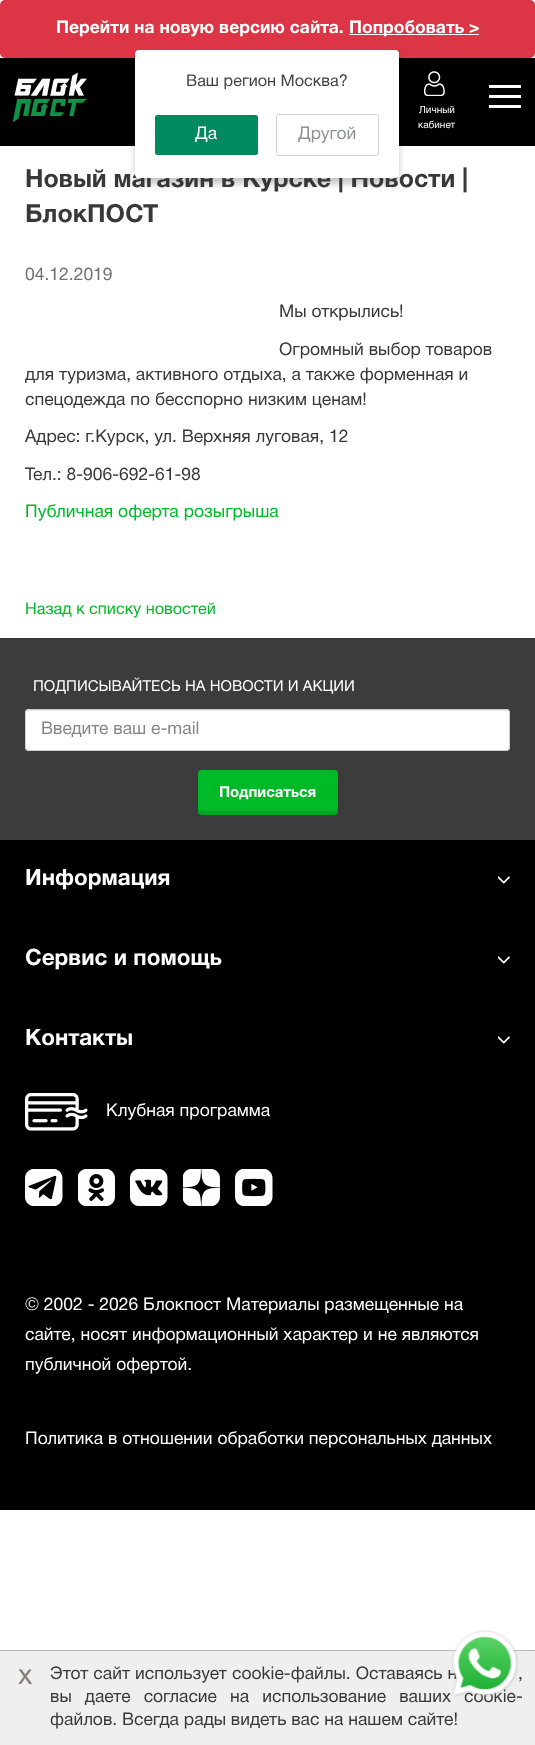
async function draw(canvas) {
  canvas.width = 535
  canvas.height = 1745
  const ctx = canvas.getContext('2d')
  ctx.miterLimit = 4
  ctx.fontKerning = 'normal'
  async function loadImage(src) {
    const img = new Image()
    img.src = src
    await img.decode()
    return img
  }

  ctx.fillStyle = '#fff'
  ctx.fillRect(0, 0, 535, 1745)
  ctx.fillStyle = '#dc3545'
  ctx.beginPath()
  ctx.roundRect(0, 0, 535, 58, 5)
  ctx.fill()
  ctx.font = 'bold 17.5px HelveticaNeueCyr'
  ctx.fillStyle = '#fff'
  ctx.fillText('Перейти на новую версию сайта.', 56, 33)
  ctx.fillRect(349, 34, 130, 1)
  ctx.fillText('Попробовать >', 349, 33)
  ctx.fillStyle = '#000'
  ctx.fillRect(0, 58, 535, 88)
  ctx.fillStyle = '#00000038'
  ctx.filter = 'blur(3px)'
  ctx.beginPath()
  ctx.roundRect(135, 56, 264, 128, 4)
  ctx.fill()
  ctx.filter = 'none'
  ctx.font = 'bold 25px HelveticaNeueCyr'
  ctx.fillStyle = '#383838'
  ctx.fillText('Новый магазин в Курске | Новости |', 25, 187)
  ctx.fillStyle = '#fff'
  ctx.beginPath()
  ctx.roundRect(135, 50, 264, 128, 4)
  ctx.fill()
  ctx.font = '16.25px HelveticaNeueCyr'
  ctx.fillStyle = '#414141'
  ctx.fillText('Ваш регион Москва?', 186, 86)
  ctx.fillStyle = '#008a5f'
  ctx.beginPath()
  ctx.roundRect(155, 115, 103, 40, 2.5)
  ctx.fill()
  ctx.font = '17.5px HelveticaNeueCyr'
  ctx.fillStyle = '#fff'
  ctx.fillText('Да', 195, 139)
  ctx.beginPath()
  ctx.roundRect(276.5, 114.5, 102, 41, 2)
  ctx.strokeStyle = '#d3d3d3'
  ctx.stroke()
  ctx.fillStyle = '#919294'
  ctx.fillText('Другой', 298, 139)
  ctx.drawImage(await loadImage('image0.png'), 13, 72, 75, 51)
  ctx.fillStyle = '#fff'
  ctx.fillRect(489, 85, 32, 3)
  ctx.fillRect(489, 95, 32, 3)
  ctx.fillRect(489, 105, 32, 3)
  ctx.drawImage(await loadImage('image1.png'), 424, 71, 21, 25)
  ctx.font = '10px HelveticaNeueCyr'
  ctx.fillText('Личный', 419, 113)
  ctx.fillText('кабинет', 418, 128)
  ctx.font = 'bold 25px HelveticaNeueCyr'
  ctx.fillStyle = '#383838'
  ctx.fillText('БлокПОСТ', 25, 222)
  ctx.font = '17.5px HelveticaNeueCyr'
  ctx.fillStyle = '#727272'
  ctx.fillText('04.12.2019', 25, 280)
  ctx.fillStyle = '#383838'
  ctx.fillText('Мы открылись!', 279, 317)
  ctx.fillText('Огромный выбор товаров', 279, 355)
  ctx.fillText('для туризма, активного отдыха, а также форменная и', 25, 380)
  ctx.fillText('спецодежда по бесспорно низким ценам!', 25, 405)
  ctx.fillText('Адрес: г.Курск, ул. Верхняя луговая, 12', 25, 442)
  ctx.fillText('Тел.: 8-906-692-61-98', 25, 480)
  ctx.fillStyle = '#00b927'
  ctx.fillText('Публичная оферта розыгрыша', 25, 517)
  ctx.font = '16.25px HelveticaNeueCyr'
  ctx.fillText('Назад к списку новостей', 25, 614)
  ctx.fillStyle = '#3c3c3c'
  ctx.fillRect(0, 638, 535, 202)
  ctx.font = '15px HelveticaNeueCyr'
  ctx.fillStyle = '#fff'
  ctx.fillText('ПОДПИСЫВАЙТЕСЬ НА НОВОСТИ И АКЦИИ', 33, 691)
  ctx.beginPath()
  ctx.roundRect(25, 709, 485, 42, 4)
  ctx.fill()
  ctx.fillStyle = '#ececec'
  ctx.beginPath()
  ctx.moveTo(29, 711)
  ctx.lineTo(506, 711)
  ctx.bezierCurveTo(508, 711, 509, 712, 509, 714)
  ctx.bezierCurveTo(509, 712, 509, 710, 506, 710)
  ctx.lineTo(28, 710)
  ctx.lineTo(26, 711)
  ctx.lineTo(26, 714)
  ctx.bezierCurveTo(26, 712, 27, 711, 29, 711)
  ctx.closePath()
  ctx.fill()
  ctx.beginPath()
  ctx.roundRect(25.5, 709.5, 484, 41, 3.5)
  ctx.strokeStyle = '#ccc'
  ctx.stroke()
  ctx.font = '17.5px HelveticaNeueCyr'
  ctx.fillStyle = '#858585'
  ctx.fillText('Введите ваш e-mail', 41, 734)
  ctx.fillStyle = '#00b927'
  ctx.beginPath()
  ctx.roundRect(198, 770, 140, 45, 4)
  ctx.fill()
  ctx.fillStyle = '#0000001a'
  ctx.beginPath()
  ctx.moveTo(198, 808)
  ctx.lineTo(198, 811)
  ctx.bezierCurveTo(198, 813, 200, 815, 202, 815)
  ctx.lineTo(334, 815)
  ctx.bezierCurveTo(336, 815, 338, 813, 338, 811)
  ctx.lineTo(338, 808)
  ctx.bezierCurveTo(338, 810, 336, 811, 334, 811)
  ctx.lineTo(201, 811)
  ctx.bezierCurveTo(199, 811, 198, 810, 198, 808)
  ctx.closePath()
  ctx.fill()
  ctx.font = 'bold 15px HelveticaNeueCyr'
  ctx.fillStyle = '#fff'
  ctx.fillText('Подписаться', 219, 797)
  ctx.fillStyle = '#000'
  ctx.fillRect(0, 840, 535, 670)
  ctx.font = 'bold 22.5px HelveticaNeueCyr'
  ctx.fillStyle = '#fff'
  ctx.fillText('Информация', 25, 885)
  ctx.drawImage(await loadImage('image2.png'), 498, 876, 12, 8)
  ctx.fillText('Сервис и помощь', 25, 965)
  ctx.drawImage(await loadImage('image2.png'), 498, 956, 12, 8)
  ctx.fillText('Контакты', 25, 1045)
  ctx.drawImage(await loadImage('image2.png'), 498, 1036, 12, 8)
  ctx.drawImage(await loadImage('image3.png'), 25, 1093, 63, 38)
  ctx.font = '17.5px HelveticaNeueCyr'
  ctx.fillText('Клубная программа', 106, 1116)
  ctx.drawImage(await loadImage('image4.png'), 25, 1169, 38, 37)
  ctx.drawImage(await loadImage('image5.png'), 78, 1169, 37, 37)
  ctx.drawImage(await loadImage('image6.png'), 130, 1169, 38, 37)
  ctx.drawImage(await loadImage('image7.png'), 183, 1169, 37, 37)
  ctx.drawImage(await loadImage('image8.png'), 235, 1169, 38, 37)
  ctx.fillText('© 2002 - 2026 Блокпост Материалы размещенные на', 25, 1310)
  ctx.fillText('сайте, носят информационный характер и не являются', 25, 1340)
  ctx.fillText('публичной офертой.', 25, 1370)
  ctx.fillText('Политика в отношении обработки персональных данных', 25, 1444)
  ctx.fillStyle = '#efefef'
  ctx.fillRect(0, 1651, 535, 94)
  ctx.fillStyle = '#b9b9b9'
  ctx.fillRect(0, 1650, 535, 1)
  ctx.font = '28px HelveticaNeueCyr'
  ctx.fillStyle = '#867f7f'
  ctx.fillText('x', 18, 1684)
  ctx.wordSpacing = '0.25px'
  ctx.font = '17.5px HelveticaNeueCyr'
  ctx.fillStyle = '#383838'
  ctx.fillText('Этот сайт использует cookie-файлы. Оставаясь н', 50, 1679)
  ctx.fillText(',', 518, 1679)
  ctx.wordSpacing = '8.25px'
  ctx.fillText('вы даете согласие на использование ваших cookie-', 50, 1702)
  ctx.wordSpacing = '0px'
  ctx.fillText('файлов. Всегда рады видеть вас на нашем сайте!', 50, 1725)
  ctx.drawImage(await loadImage('image9.png'), 451, 1630, 68, 68)
}

draw(document.querySelector('canvas'))
